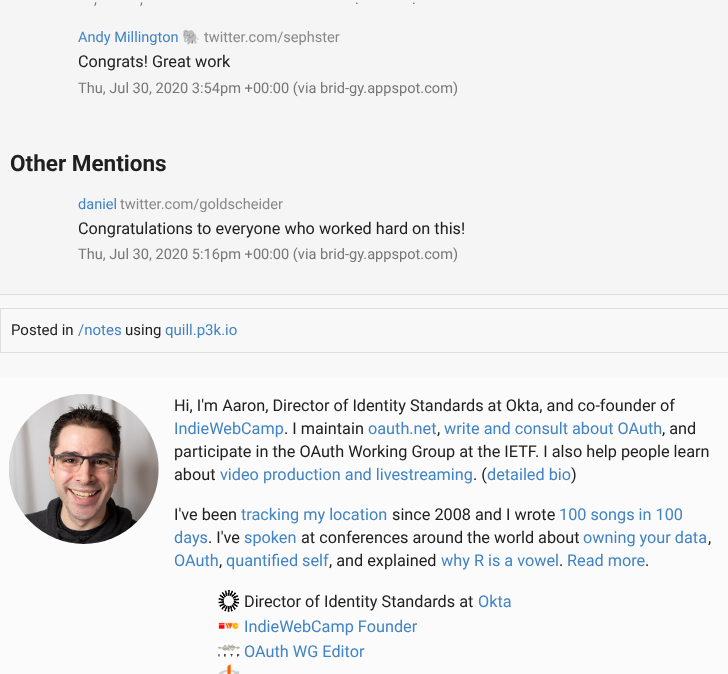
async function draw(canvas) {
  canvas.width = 728
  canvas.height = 674
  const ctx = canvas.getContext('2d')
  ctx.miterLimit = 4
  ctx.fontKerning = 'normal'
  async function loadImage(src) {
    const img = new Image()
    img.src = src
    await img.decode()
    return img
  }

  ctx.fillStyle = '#f8f8f8'
  ctx.fillRect(0, 0, 728, 674)
  ctx.fillStyle = '#f5f5f5'
  ctx.fillRect(0, 0, 728, 294)
  ctx.fillStyle = '#ddd'
  ctx.fillRect(0, 294, 728, 1)
  ctx.font = '14.6px Roboto'
  ctx.fillStyle = '#777'
  ctx.fillText(',', 94, 4)
  ctx.fillText(',', 140, 4)
  ctx.fillText('.', 355, 4)
  ctx.fillText('.', 412, 4)
  ctx.fillStyle = '#4183c4'
  ctx.fillText('Andy Millington', 78, 42)
  ctx.font = '14.6px Noto Color Emoji'
  ctx.fillText('🐘', 182, 42)
  ctx.font = '14.6px Roboto'
  ctx.fillStyle = '#888'
  ctx.fillText('twitter.com/sephster', 204, 42)
  ctx.font = '16.25px Roboto'
  ctx.fillStyle = '#202020'
  ctx.fillText('Congrats! Great work', 78, 67)
  ctx.font = '14.6px Roboto'
  ctx.fillStyle = '#777'
  ctx.fillText('Thu, Jul 30, 2020 3:54pm +00:00 (via brid-gy.appspot.com)', 78, 93)
  ctx.font = 'bold 22.5px Roboto'
  ctx.fillStyle = '#202020'
  ctx.fillText('Other Mentions', 10, 171)
  ctx.font = '14.6px Roboto'
  ctx.fillStyle = '#4183c4'
  ctx.fillText('daniel', 78, 209)
  ctx.fillStyle = '#888'
  ctx.fillText('twitter.com/goldscheider', 120, 209)
  ctx.font = '16.25px Roboto'
  ctx.fillStyle = '#202020'
  ctx.fillText('Congratulations to everyone who worked hard on this!', 78, 234)
  ctx.font = '14.6px Roboto'
  ctx.fillStyle = '#777'
  ctx.fillText('Thu, Jul 30, 2020 5:16pm +00:00 (via brid-gy.appspot.com)', 78, 259)
  ctx.strokeStyle = '#ddd'
  ctx.strokeRect(0.5, 308.5, 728, 44)
  ctx.font = '15px Roboto'
  ctx.fillStyle = '#202020'
  ctx.fillText('Posted in', 11, 335)
  ctx.fillStyle = '#4183c4'
  ctx.fillText('/notes', 78, 335)
  ctx.fillStyle = '#202020'
  ctx.fillText('using', 125, 335)
  ctx.fillStyle = '#4183c4'
  ctx.fillText('quill.p3k.io', 165, 335)
  ctx.fillStyle = '#fbfbfb'
  ctx.fillRect(0, 378, 728, 296)
  ctx.drawImage(await loadImage('image0.png'), 9, 394, 150, 150)
  ctx.font = '16.25px Roboto'
  ctx.fillStyle = '#202020'
  ctx.fillText('Hi, I\'m Aaron, Director of Identity Standards at Okta, and co-founder of', 174, 411)
  ctx.fillStyle = '#4183c4'
  ctx.fillText('IndieWebCamp', 174, 434)
  ctx.fillStyle = '#202020'
  ctx.fillText('. I maintain', 284, 434)
  ctx.fillStyle = '#4183c4'
  ctx.fillText('oauth.net', 368, 434)
  ctx.fillStyle = '#202020'
  ctx.fillText(',', 437, 434)
  ctx.fillStyle = '#4183c4'
  ctx.fillText('write and consult about OAuth', 444, 434)
  ctx.fillStyle = '#202020'
  ctx.fillText(', and', 662, 434)
  ctx.fillText('participate in the OAuth Working Group at the IETF. I also help people learn', 174, 457)
  ctx.fillText('about', 174, 480)
  ctx.fillStyle = '#4183c4'
  ctx.fillText('video production and livestreaming', 220, 480)
  ctx.fillStyle = '#202020'
  ctx.fillText('. (', 473, 480)
  ctx.fillStyle = '#4183c4'
  ctx.fillText('detailed bio', 487, 480)
  ctx.fillStyle = '#202020'
  ctx.fillText(')', 571, 480)
  ctx.fillText('I\'ve been', 174, 520)
  ctx.fillStyle = '#4183c4'
  ctx.fillText('tracking my location', 241, 520)
  ctx.fillStyle = '#202020'
  ctx.fillText('since 2008 and I wrote', 392, 520)
  ctx.fillStyle = '#4183c4'
  ctx.fillText('100 songs in 100', 559, 520)
  ctx.fillText('days', 174, 543)
  ctx.fillStyle = '#202020'
  ctx.fillText('. I\'ve', 208, 543)
  ctx.fillStyle = '#4183c4'
  ctx.fillText('spoken', 244, 543)
  ctx.fillStyle = '#202020'
  ctx.fillText('at conferences around the world about', 301, 543)
  ctx.fillStyle = '#4183c4'
  ctx.fillText('owning your data', 583, 543)
  ctx.fillStyle = '#202020'
  ctx.fillText(',', 708, 543)
  ctx.fillStyle = '#4183c4'
  ctx.fillText('OAuth', 174, 566)
  ctx.fillStyle = '#202020'
  ctx.fillText(',', 219, 566)
  ctx.fillStyle = '#4183c4'
  ctx.fillText('quantified self', 226, 566)
  ctx.fillStyle = '#202020'
  ctx.fillText(', and explained', 329, 566)
  ctx.fillStyle = '#4183c4'
  ctx.fillText('why R is a vowel', 441, 566)
  ctx.fillStyle = '#202020'
  ctx.fillText('.', 559, 566)
  ctx.fillStyle = '#4183c4'
  ctx.fillText('Read more', 567, 566)
  ctx.fillStyle = '#202020'
  ctx.fillText('.', 645, 566)
  ctx.drawImage(await loadImage('image1.png'), 218, 589, 22, 23)
  ctx.fillText('Director of Identity Standards at', 244, 607)
  ctx.fillStyle = '#4183c4'
  ctx.fillText('Okta', 478, 607)
  ctx.drawImage(await loadImage('image2.png'), 218, 622, 21, 7)
  ctx.fillText('IndieWebCamp Founder', 244, 632)
  ctx.drawImage(await loadImage('image3.png'), 218, 644, 22, 13)
  ctx.fillText('OAuth WG Editor', 244, 657)
  ctx.drawImage(await loadImage('image4.png'), 218, 664, 22, 10)
}

draw(document.querySelector('canvas'))
